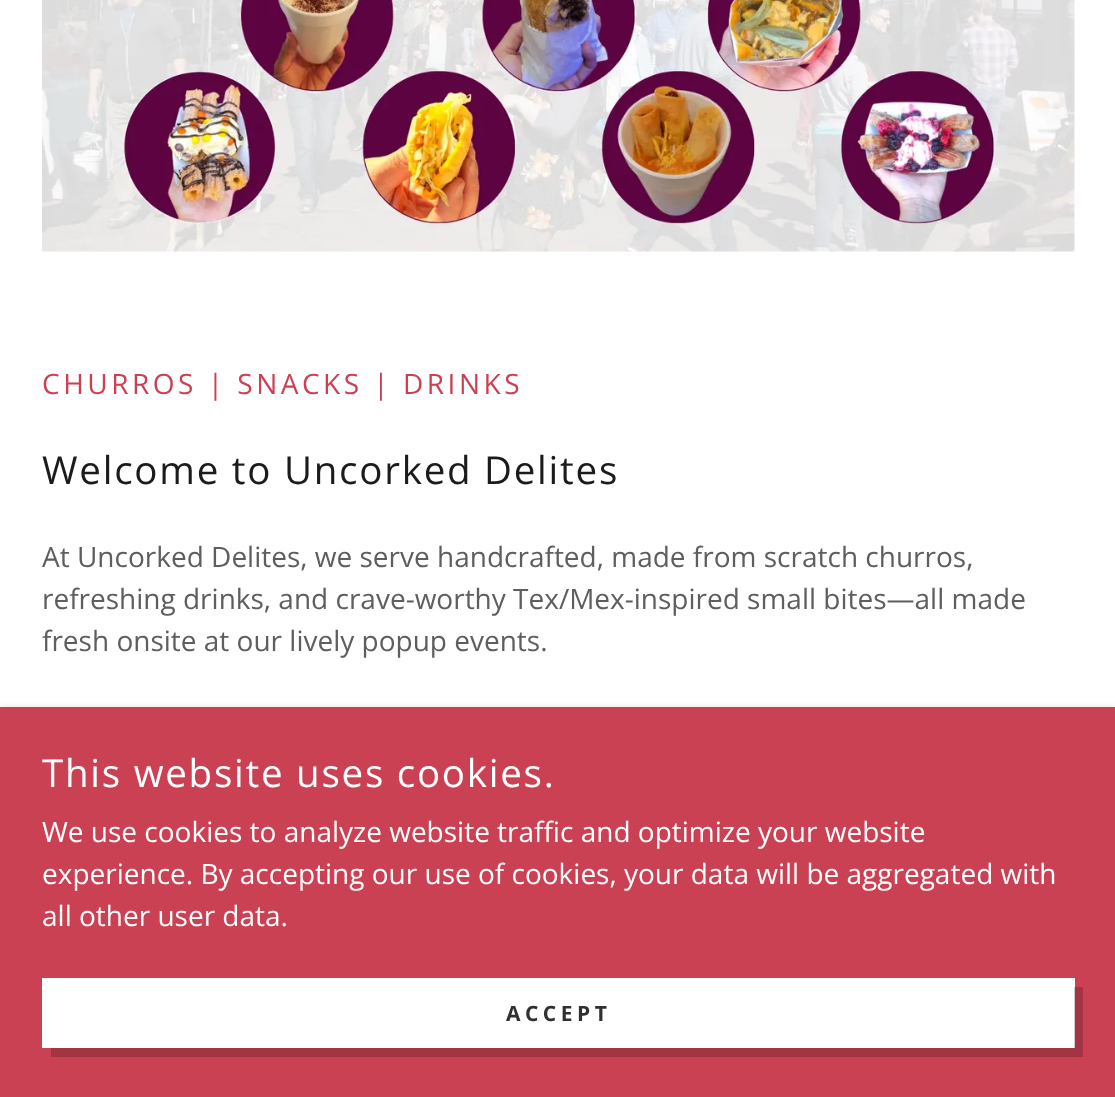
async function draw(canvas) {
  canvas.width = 1115
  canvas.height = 1097
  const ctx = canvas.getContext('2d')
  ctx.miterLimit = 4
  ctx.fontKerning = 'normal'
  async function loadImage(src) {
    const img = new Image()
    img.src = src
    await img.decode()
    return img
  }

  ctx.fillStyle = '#fff'
  ctx.fillRect(0, 0, 1115, 1097)
  ctx.drawImage(await loadImage('image0.png'), 42, 0, 1033, 252)
  ctx.letterSpacing = '3.5px'
  ctx.font = '28px Open Sans'
  ctx.fillStyle = '#cb4154'
  ctx.fillText('CHURROS | SNACKS | DRINKS', 42, 394)
  ctx.letterSpacing = '1.75px'
  ctx.font = '38.5px Open Sans'
  ctx.fillStyle = '#1b1b1b'
  ctx.fillText('Welcome to Uncorked Delites', 42, 484)
  ctx.letterSpacing = '0px'
  ctx.font = '28px Open Sans'
  ctx.fillStyle = '#5e5e5e'
  ctx.fillText('At Uncorked Delites, we serve handcrafted, made from scratch churros,', 42, 567)
  ctx.fillText('refreshing drinks, and crave-worthy Tex/Mex-inspired small bites—all made', 42, 609)
  ctx.fillText('fresh onsite at our lively popup events.', 42, 651)
  ctx.fillStyle = '#0000004d'
  ctx.filter = 'blur(5px)'
  ctx.beginPath()
  ctx.rect(0, 711, 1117, 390)
  ctx.fill()
  ctx.filter = 'none'
  ctx.fillStyle = '#cb4154'
  ctx.fillRect(0, 707, 1115, 390)
  ctx.letterSpacing = '1.75px'
  ctx.font = '38.5px Open Sans'
  ctx.fillStyle = '#fff'
  ctx.fillText('This website uses cookies.', 42, 787)
  ctx.letterSpacing = '0px'
  ctx.font = '28px Open Sans'
  ctx.fillText('We use cookies to analyze website traffic and optimize your website', 42, 842)
  ctx.fillText('experience. By accepting our use of cookies, your data will be aggregated with', 42, 884)
  ctx.fillText('all other user data.', 42, 926)
  ctx.fillRect(42, 978, 1033, 70)
  ctx.fillStyle = '#00000033'
  ctx.beginPath()
  ctx.moveTo(51, 1048)
  ctx.lineTo(51, 1057)
  ctx.lineTo(1083, 1057)
  ctx.lineTo(1083, 987)
  ctx.lineTo(1074, 987)
  ctx.lineTo(1074, 1048)
  ctx.closePath()
  ctx.fill()
  ctx.letterSpacing = '4.5px'
  ctx.font = 'bold 21px Open Sans'
  ctx.fillStyle = '#303030'
  ctx.fillText('ACCEPT', 506, 1021)
}

draw(document.querySelector('canvas'))
